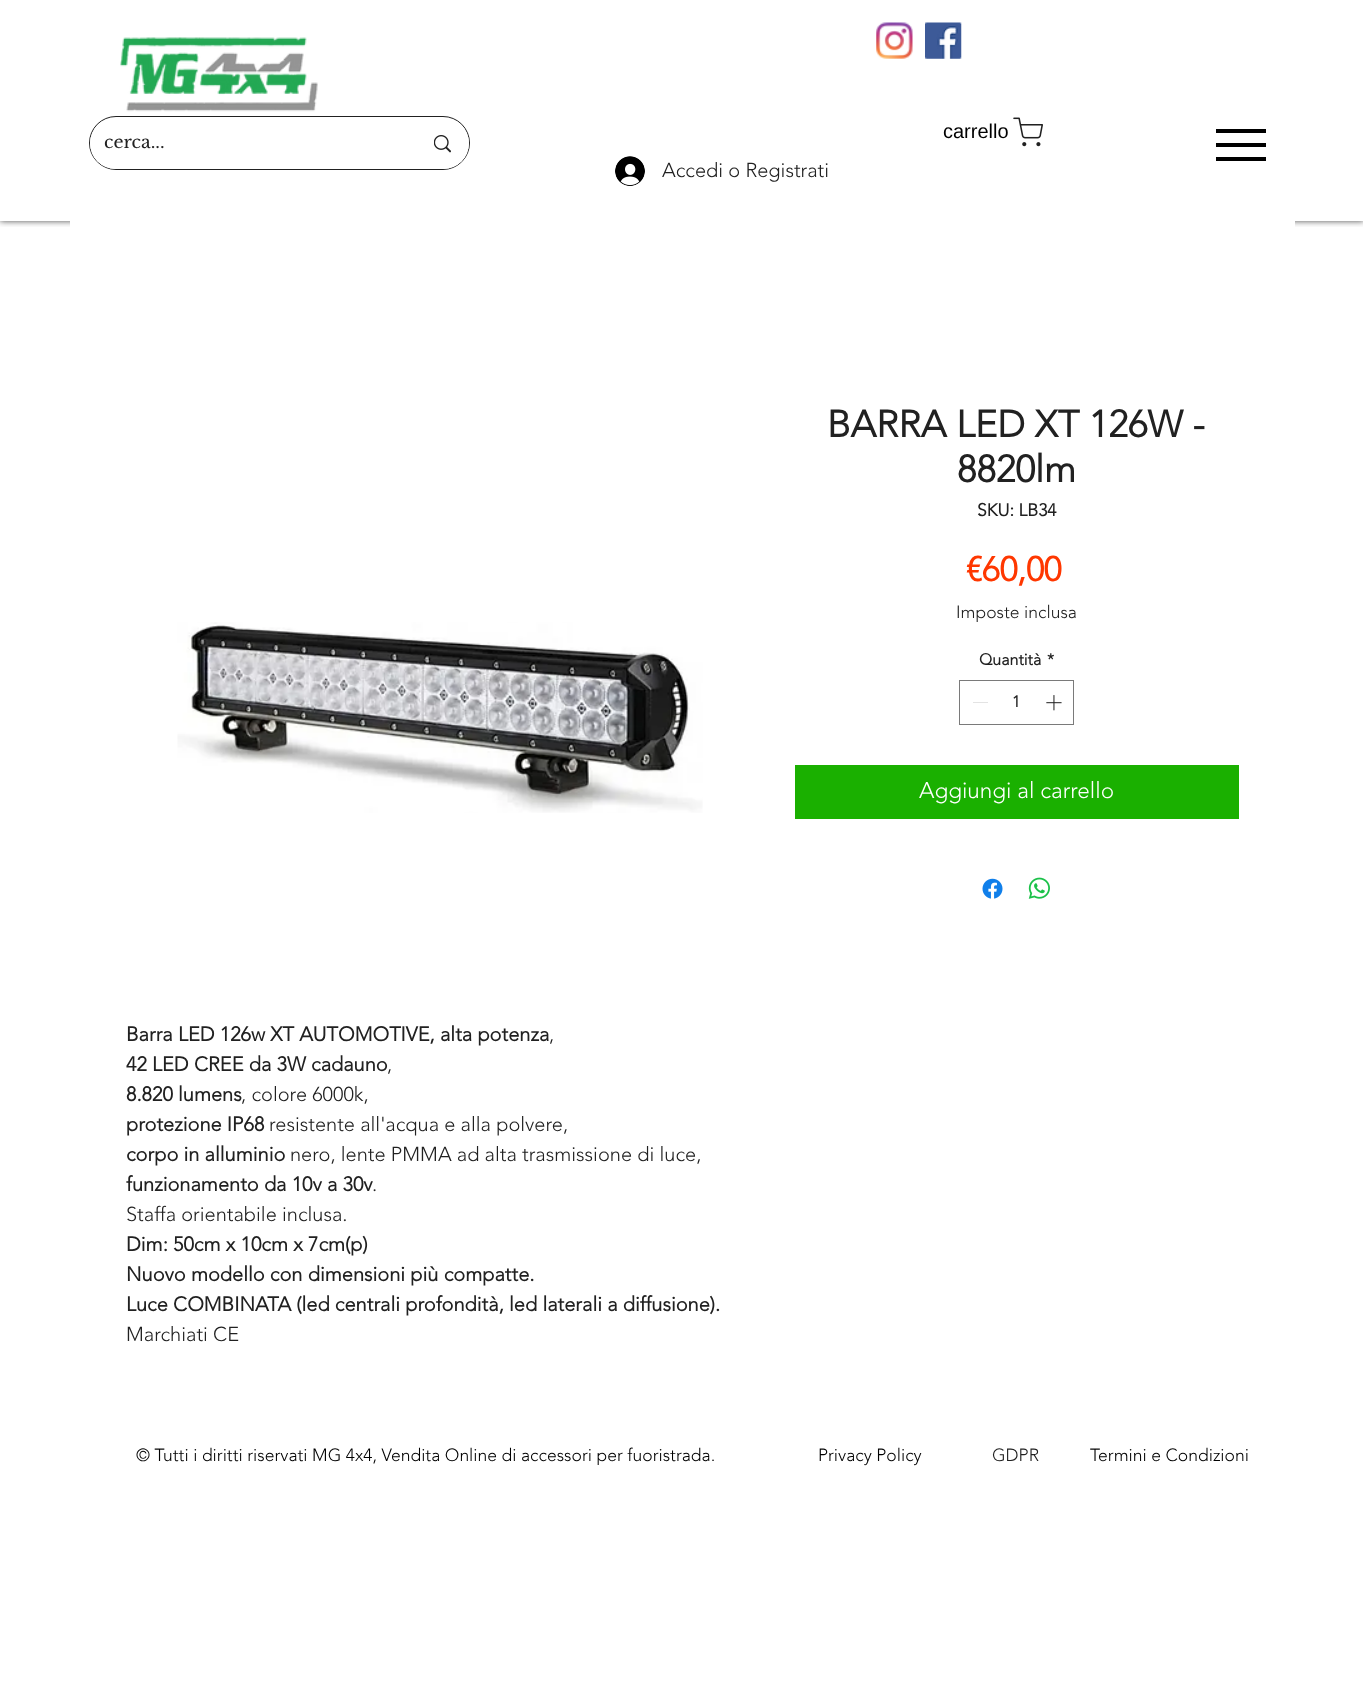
async function draw(canvas) {
  canvas.width = 1363
  canvas.height = 1707
  const ctx = canvas.getContext('2d')
  ctx.miterLimit = 4
  ctx.fontKerning = 'normal'
  async function loadImage(src) {
    const img = new Image()
    img.src = src
    await img.decode()
    return img
  }

  ctx.fillStyle = '#fff'
  ctx.fillRect(0, 0, 1363, 1707)
  ctx.save()
  ctx.beginPath()
  ctx.rect(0, 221, 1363, 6)
  ctx.clip()
  ctx.fillStyle = '#000000b3'
  ctx.filter = 'blur(3px)'
  ctx.beginPath()
  ctx.rect(0, 0, 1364, 221)
  ctx.fill()
  ctx.filter = 'none'
  ctx.restore()
  ctx.drawImage(await loadImage('image0.png'), 120, 37, 198, 75)
  ctx.drawImage(await loadImage('image1.png'), 876, 22, 37, 37)
  ctx.drawImage(await loadImage('image2.png'), 925, 22, 37, 37)
  ctx.beginPath()
  ctx.roundRect(89.5, 116.5, 380, 53, 26.5)
  ctx.strokeStyle = '#212121'
  ctx.stroke()
  ctx.beginPath()
  ctx.roundRect(90, 118, 379, 51, 25.5)
  ctx.fill()
  ctx.font = '17.5px Libre Baskerville'
  ctx.fillStyle = '#212121'
  ctx.fillText('cerca...', 104, 148)
  ctx.drawImage(await loadImage('image3.png'), 434, 135, 17, 18)
  ctx.font = '20px Liberation Sans'
  ctx.fillStyle = '#000'
  ctx.fillText('carrello', 943, 138)
  ctx.drawImage(await loadImage('image4.png'), 1013, 117, 30, 30)
  ctx.fillRect(1216, 157, 50, 4)
  ctx.fillRect(1216, 129, 50, 4)
  ctx.fillRect(1216, 143, 50, 4)
  ctx.drawImage(await loadImage('image5.png'), 615, 156, 30, 30)
  ctx.font = '300 20px "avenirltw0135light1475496"'
  ctx.fillStyle = '#212121'
  ctx.fillText('Accedi o Registrati', 662, 177)
  ctx.fillStyle = '#fff'
  ctx.fillRect(70, 221, 1225, 7)
  ctx.font = 'bold 37.5px "avenirltw0135light1475496"'
  ctx.fillStyle = '#212121'
  ctx.fillText('BARRA LED XT 126W -', 827, 437)
  ctx.fillText('8820lm', 957, 482)
  ctx.font = 'bold 17.5px "avenirltw0135light1475496"'
  ctx.fillText('SKU: LB34', 977, 516)
  ctx.font = 'bold 34px "avenirltw0135light1475496"'
  ctx.fillStyle = '#ff3700'
  ctx.fillText('€60,00', 966, 581)
  ctx.font = '300 17.5px "avenirltw0135light1475496"'
  ctx.fillStyle = '#212121'
  ctx.fillText('Imposte inclusa', 956, 618)
  ctx.font = 'bold 16px "avenirltw0135light1475496"'
  ctx.fillText('Quantità', 979, 665)
  ctx.fillText('*', 1047, 665)
  ctx.strokeStyle = '#7a7a7a'
  ctx.strokeRect(959.5, 680.5, 114, 44)
  ctx.fillStyle = '#e3e3e3'
  ctx.fillRect(973, 702, 15, 1)
  ctx.fillStyle = '#212121'
  ctx.fillText('1', 1012, 707)
  ctx.drawImage(await loadImage('image6.png'), 1046, 695, 16, 16)
  ctx.fillStyle = '#1ab000'
  ctx.fillRect(795, 765, 444, 54)
  ctx.font = '300 22.5px "avenirltw0135light1475496"'
  ctx.fillStyle = '#fff'
  ctx.fillText('Aggiungi al carrello', 919, 798)
  ctx.drawImage(await loadImage('image7.png'), 982, 878, 21, 21)
  ctx.drawImage(await loadImage('image8.png'), 1028, 877, 22, 22)
  ctx.drawImage(await loadImage('image9.png'), 177, 622, 526, 191)
  ctx.font = 'bold 20px "avenirltw0135light1475496"'
  ctx.fillStyle = '#212121'
  ctx.fillText('Barra LED 126w XT AUTOMOTIVE, alta potenza', 126, 1041)
  ctx.font = '300 20px "avenirltw0135light1475496"'
  ctx.fillText(',', 549, 1041)
  ctx.font = 'bold 20px "avenirltw0135light1475496"'
  ctx.fillText('42 LED CREE da 3W cadauno', 126, 1071)
  ctx.font = '300 20px "avenirltw0135light1475496"'
  ctx.fillText(',', 387, 1071)
  ctx.font = 'bold 20px "avenirltw0135light1475496"'
  ctx.fillText('8.820 lumens', 126, 1101)
  ctx.font = '300 20px "avenirltw0135light1475496"'
  ctx.fillText(', colore 6000k,', 241, 1101)
  ctx.font = 'bold 20px "avenirltw0135light1475496"'
  ctx.fillText('protezione IP68', 126, 1131)
  ctx.font = '300 20px "avenirltw0135light1475496"'
  ctx.fillText('resistente all\'acqua e alla polvere,', 269, 1131)
  ctx.font = 'bold 20px "avenirltw0135light1475496"'
  ctx.fillText('corpo in alluminio', 126, 1161)
  ctx.font = '300 20px "avenirltw0135light1475496"'
  ctx.fillText('nero, lente PMMA ad alta trasmissione di luce,', 290, 1161)
  ctx.font = 'bold 20px "avenirltw0135light1475496"'
  ctx.fillText('funzionamento da 10v a 30v', 126, 1191)
  ctx.font = '300 20px "avenirltw0135light1475496"'
  ctx.fillText('.', 372, 1191)
  ctx.fillText('Staffa orientabile inclusa.', 126, 1221)
  ctx.font = 'bold 20px "avenirltw0135light1475496"'
  ctx.fillText('Dim: 50cm x 10cm x 7cm(p)', 126, 1251)
  ctx.fillText('Nuovo modello con dimensioni più compatte.', 126, 1281)
  ctx.fillText('Luce COMBINATA (led centrali profondità, led laterali a diffusione).', 126, 1311)
  ctx.font = '300 20px "avenirltw0135light1475496"'
  ctx.fillText('Marchiati CE', 126, 1341)
  ctx.font = '300 17.5px "avenirltw0135light1475496"'
  ctx.fillStyle = '#000'
  ctx.fillText('© Tutti i diritti riservati MG 4x4, Vendita Online di accessori per fuoristrada.', 136, 1461)
  ctx.fillText('Privacy Policy', 818, 1461)
  ctx.fillStyle = '#212121'
  ctx.fillText('GDPR', 992, 1461)
  ctx.fillStyle = '#000'
  ctx.fillText('Termini e Condizioni', 1090, 1461)
}

draw(document.querySelector('canvas'))
